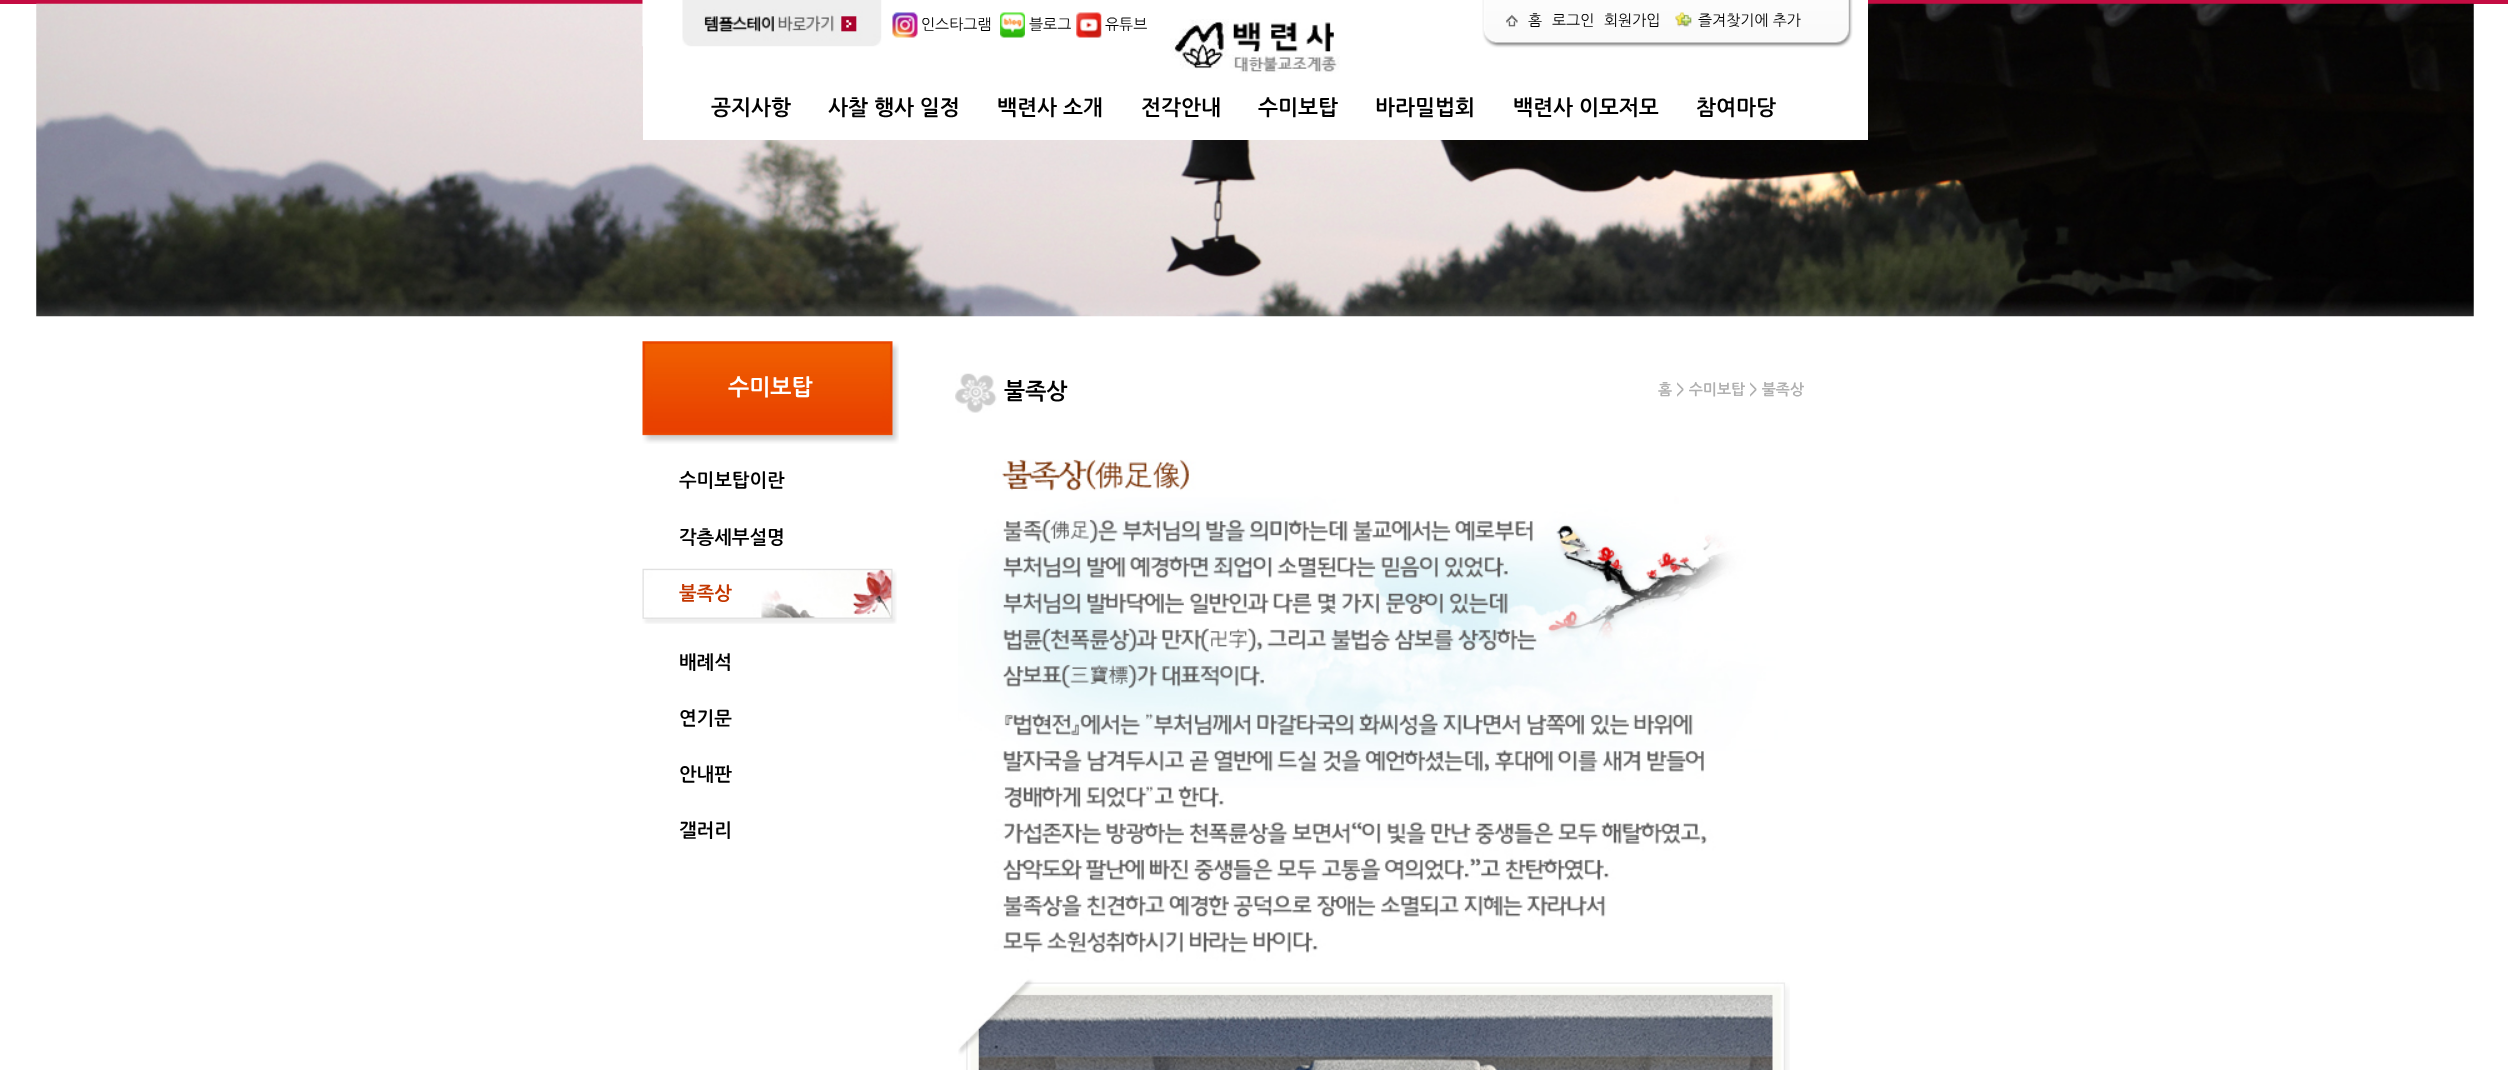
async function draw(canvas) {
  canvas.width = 2508
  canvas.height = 1070
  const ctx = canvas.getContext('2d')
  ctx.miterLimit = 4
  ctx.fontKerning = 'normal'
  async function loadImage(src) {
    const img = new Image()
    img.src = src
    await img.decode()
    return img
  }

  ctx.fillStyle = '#fff'
  ctx.fillRect(0, 0, 2508, 1070)
  ctx.fillStyle = '#c40c42'
  ctx.fillRect(0, 0, 2508, 4)
  ctx.drawImage(await loadImage('image8.png'), 36, 3, 2438, 314)
  ctx.fillStyle = '#fff'
  ctx.fillRect(643, 0, 1225, 140)
  ctx.drawImage(await loadImage('image0.png'), 642, 0, 240, 47)
  ctx.drawImage(await loadImage('image1.png'), 892, 12, 26, 26)
  ctx.font = '15px NanumGothic'
  ctx.fillStyle = '#000'
  ctx.fillText('인스타그램', 921, 29)
  ctx.drawImage(await loadImage('image2.png'), 1000, 12, 25, 26)
  ctx.fillText('블로그', 1029, 29)
  ctx.drawImage(await loadImage('image3.png'), 1076, 12, 26, 26)
  ctx.fillText('유튜브', 1105, 29)
  ctx.drawImage(await loadImage('image4.png'), 1170, 19, 170, 55)
  ctx.drawImage(await loadImage('image5.png'), 1482, 0, 371, 48)
  ctx.drawImage(await loadImage('image6.png'), 1506, 14, 12, 13)
  ctx.fillText('홈', 1528, 25)
  ctx.fillText('로그인', 1552, 25)
  ctx.fillText('회원가입', 1604, 25)
  ctx.drawImage(await loadImage('image7.png'), 1675, 12, 17, 15)
  ctx.fillText('즐겨찾기에 추가', 1698, 25)
  ctx.font = 'bold 21.25px NanumGothic'
  ctx.fillText('공지사항', 711, 114)
  ctx.fillText('사찰 행사 일정', 828, 114)
  ctx.fillText('백련사 소개', 997, 114)
  ctx.fillText('전각안내', 1141, 114)
  ctx.fillText('수미보탑', 1258, 114)
  ctx.fillText('바라밀법회', 1375, 114)
  ctx.fillText('백련사 이모저모', 1513, 114)
  ctx.fillText('참여마당', 1696, 114)
  ctx.drawImage(await loadImage('image9.png'), 642, 341, 257, 103)
  ctx.font = 'bold 22.5px NanumGothic'
  ctx.fillStyle = '#fff'
  ctx.fillText('수미보탑', 728, 394)
  ctx.font = 'bold 18.75px NanumGothic'
  ctx.fillStyle = '#000'
  ctx.fillText('수미보탑이란', 679, 486)
  ctx.fillText('각층세부설명', 679, 543)
  ctx.drawImage(await loadImage('image10.png'), 642, 568, 255, 56)
  ctx.fillStyle = '#c33700'
  ctx.fillText('불족상', 679, 599)
  ctx.fillStyle = '#000'
  ctx.fillText('배례석', 679, 668)
  ctx.fillText('연기문', 679, 724)
  ctx.fillText('안내판', 679, 780)
  ctx.fillText('갤러리', 679, 836)
  ctx.drawImage(await loadImage('image11.png'), 955, 373, 42, 40)
  ctx.font = 'bold 22.5px NanumGothic'
  ctx.fillText('불족상', 1004, 398)
  ctx.font = 'bold 15px NanumGothic'
  ctx.fillStyle = '#b0b0b0'
  ctx.fillText('홈 > 수미보탑 > 불족상', 1658, 394)
  ctx.drawImage(await loadImage('image12.png'), 958, 459, 832, 611)
}

draw(document.querySelector('canvas'))
